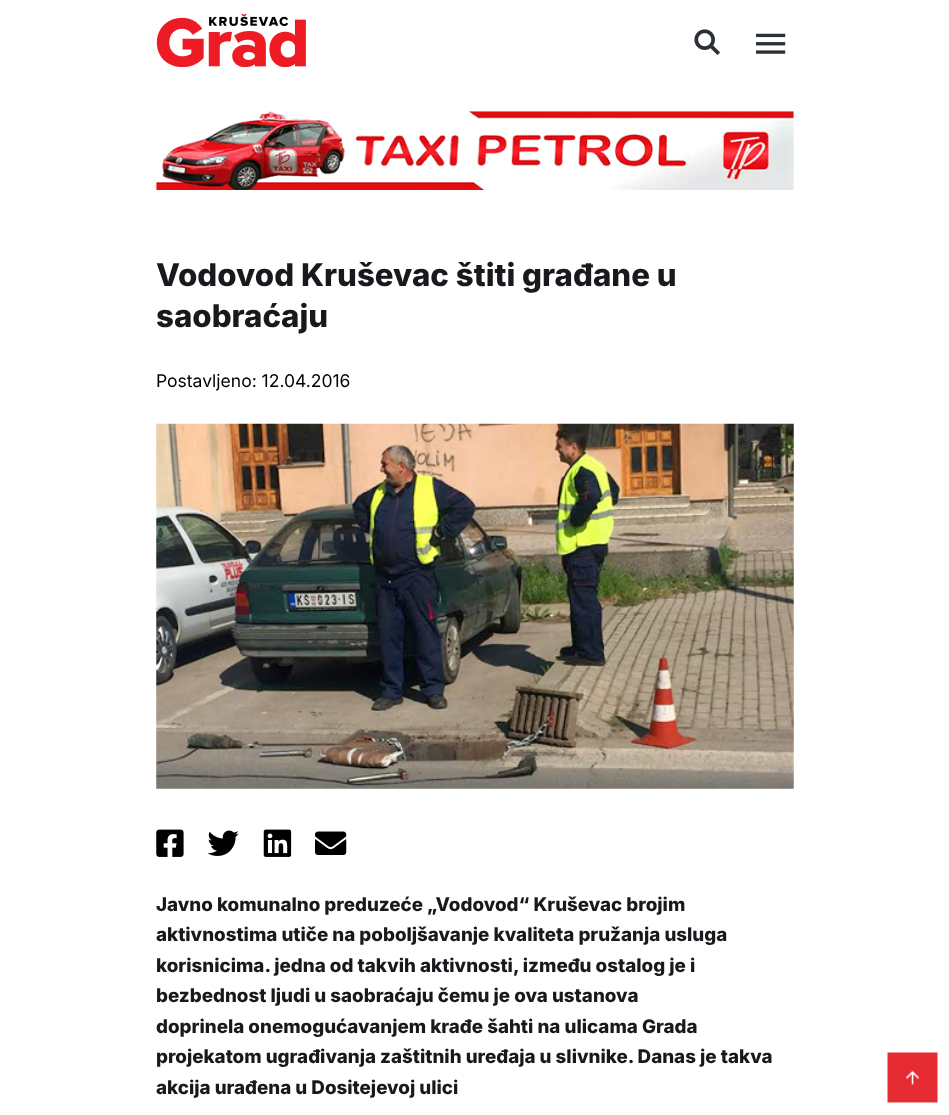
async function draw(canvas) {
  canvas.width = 949
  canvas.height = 1115
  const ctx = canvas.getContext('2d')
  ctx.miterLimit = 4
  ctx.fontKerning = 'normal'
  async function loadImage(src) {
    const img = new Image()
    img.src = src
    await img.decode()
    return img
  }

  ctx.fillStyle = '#fff'
  ctx.fillRect(0, 0, 949, 1115)
  ctx.drawImage(await loadImage('image0.png'), 156, 14, 150, 53)
  ctx.drawImage(await loadImage('image1.png'), 694, 29, 26, 26)
  ctx.drawImage(await loadImage('image2.png'), 756, 33, 30, 21)
  ctx.drawImage(await loadImage('image3.png'), 156, 111, 638, 79)
  ctx.font = '800 31.25px Inter'
  ctx.fillStyle = '#19191d'
  ctx.fillText('Vodovod Kruševac štiti građane u', 156, 286)
  ctx.fillText('saobraćaju', 156, 327)
  ctx.font = '17.5px Inter'
  ctx.fillStyle = '#000'
  ctx.fillText('Postavljeno: 12.04.2016', 156, 387)
  ctx.drawImage(await loadImage('image4.png'), 156, 423, 638, 366)
  ctx.drawImage(await loadImage('image5.png'), 156, 829, 28, 28)
  ctx.drawImage(await loadImage('image6.png'), 207, 830, 32, 26)
  ctx.drawImage(await loadImage('image7.png'), 263, 829, 29, 28)
  ctx.drawImage(await loadImage('image8.png'), 315, 831, 32, 24)
  ctx.font = '800 18.75px Inter'
  ctx.fillStyle = '#19191d'
  ctx.fillText('Javno komunalno preduzeće „Vodovod“ Kruševac brojim', 156, 911)
  ctx.fillText('aktivnostima utiče na poboljšavanje kvaliteta pružanja usluga', 156, 941)
  ctx.fillText('korisnicima. jedna od takvih aktivnosti, između ostalog je i', 156, 972)
  ctx.fillText('bezbednost ljudi u saobraćaju čemu je ova ustanova', 156, 1002)
  ctx.fillText('doprinela onemogućavanjem krađe šahti na ulicama Grada', 156, 1033)
  ctx.fillText('projekatom ugrađivanja zaštitnih uređaja u slivnike. Danas je takva', 156, 1063)
  ctx.fillText('akcija urađena u Dositejevoj ulici', 156, 1094)
  ctx.drawImage(await loadImage('image9.png'), 887, 1052, 51, 51)
}

draw(document.querySelector('canvas'))
